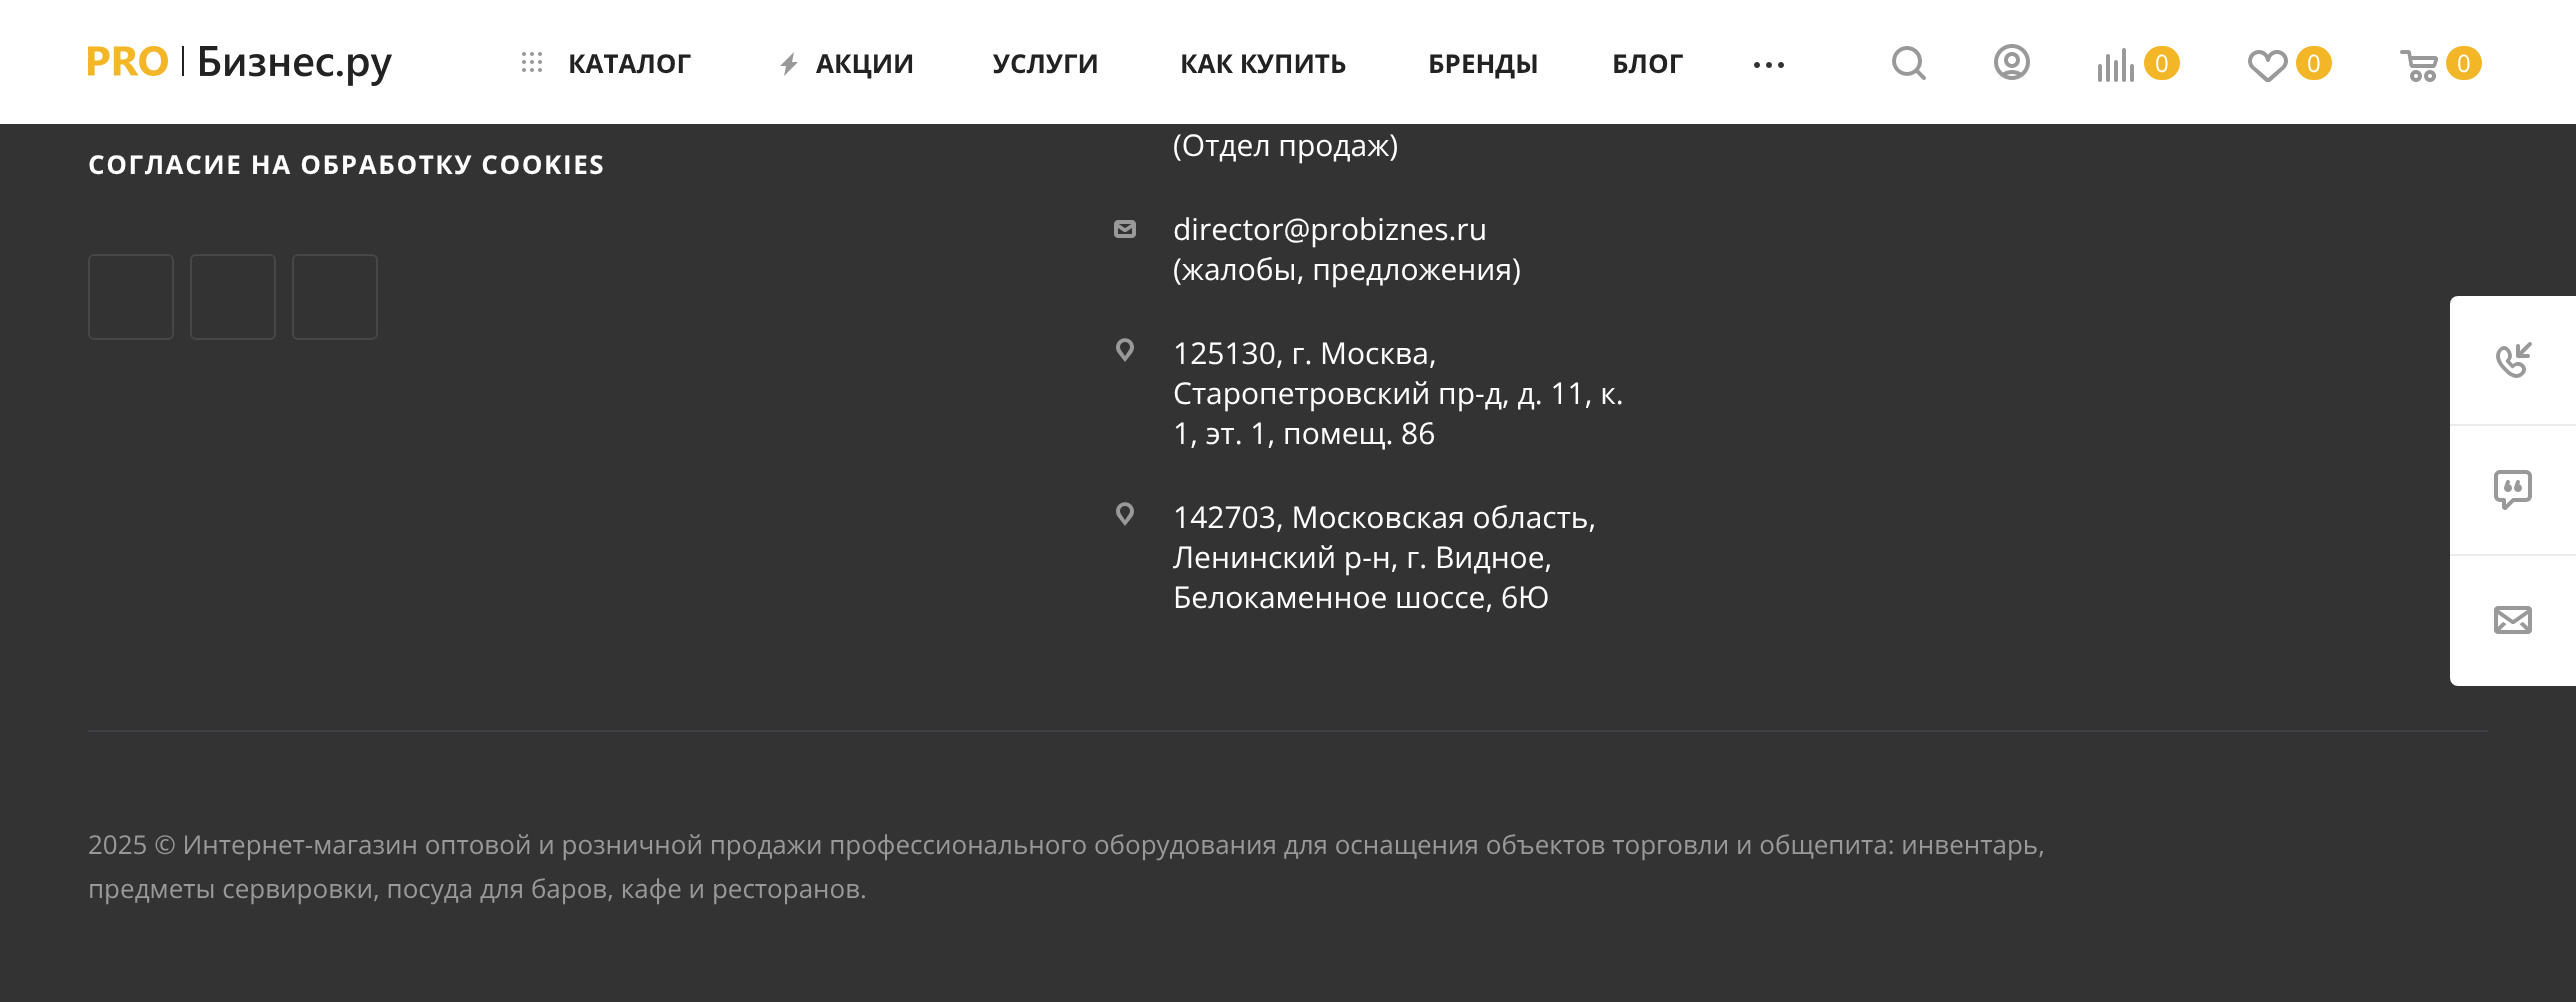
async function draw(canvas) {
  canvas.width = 2576
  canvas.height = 1002
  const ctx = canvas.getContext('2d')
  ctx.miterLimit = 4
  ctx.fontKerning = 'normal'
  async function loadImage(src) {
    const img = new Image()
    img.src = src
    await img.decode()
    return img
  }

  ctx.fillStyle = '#333'
  ctx.fillRect(0, 0, 2576, 1002)
  ctx.fillStyle = '#fff'
  ctx.fillRect(0, 0, 2576, 124)
  ctx.drawImage(await loadImage('image0.png'), 88, 46, 304, 40)
  ctx.drawImage(await loadImage('image1.png'), 522, 52, 20, 20)
  ctx.font = 'bold 26px Open Sans'
  ctx.fillStyle = '#222'
  ctx.fillText('КАТАЛОГ', 568, 73)
  ctx.fillStyle = '#999'
  ctx.beginPath()
  ctx.moveTo(794, 52)
  ctx.lineTo(780, 66)
  ctx.lineTo(786, 66)
  ctx.lineTo(784, 76)
  ctx.lineTo(798, 62)
  ctx.lineTo(792, 62)
  ctx.closePath()
  ctx.fill('evenodd')
  ctx.fillStyle = '#222'
  ctx.fillText('АКЦИИ', 816, 73)
  ctx.fillText('УСЛУГИ', 993, 73)
  ctx.fillText('КАК КУПИТЬ', 1180, 73)
  ctx.fillText('БРЕНДЫ', 1428, 73)
  ctx.fillText('БЛОГ', 1612, 73)
  ctx.drawImage(await loadImage('image2.png'), 1754, 62, 30, 6)
  ctx.drawImage(await loadImage('image3.png'), 1892, 46, 34, 34)
  ctx.drawImage(await loadImage('image4.png'), 1994, 44, 36, 36)
  ctx.drawImage(await loadImage('image5.png'), 2098, 48, 36, 34)
  ctx.fillStyle = '#f3b627'
  ctx.beginPath()
  ctx.roundRect(2144, 46, 36, 34, 17)
  ctx.fill()
  ctx.font = '24px Open Sans'
  ctx.fillStyle = '#fff'
  ctx.fillText('0', 2155, 72)
  ctx.drawImage(await loadImage('image6.png'), 2248, 50, 40, 32)
  ctx.fillStyle = '#f3b627'
  ctx.beginPath()
  ctx.roundRect(2296, 46, 36, 34, 17)
  ctx.fill()
  ctx.fillStyle = '#fff'
  ctx.fillText('0', 2307, 72)
  ctx.drawImage(await loadImage('image7.png'), 2400, 50, 38, 32)
  ctx.fillStyle = '#f3b627'
  ctx.beginPath()
  ctx.roundRect(2446, 46, 36, 34, 17)
  ctx.fill()
  ctx.fillStyle = '#fff'
  ctx.fillText('0', 2457, 72)
  ctx.letterSpacing = '1.6px'
  ctx.font = 'bold 26px Open Sans'
  ctx.fillText('СОГЛАСИЕ НА ОБРАБОТКУ COOKIES', 88, 174)
  ctx.beginPath()
  ctx.roundRect(89, 255, 84, 84, 5)
  ctx.strokeStyle = '#474747'
  ctx.lineWidth = 2
  ctx.stroke()
  ctx.beginPath()
  ctx.roundRect(191, 255, 84, 84, 5)
  ctx.stroke()
  ctx.beginPath()
  ctx.roundRect(293, 255, 84, 84, 5)
  ctx.stroke()
  ctx.letterSpacing = '0px'
  ctx.font = '30px Open Sans'
  ctx.fillText('(Отдел продаж)', 1173, 156)
  ctx.drawImage(await loadImage('image8.png'), 1114, 220, 22, 18)
  ctx.fillText('director@probiznes.ru', 1173, 240)
  ctx.fillText('(жалобы, предложения)', 1173, 280)
  ctx.drawImage(await loadImage('image9.png'), 1116, 338, 18, 24)
  ctx.fillText('125130, г. Москва,', 1173, 364)
  ctx.fillText('Старопетровский пр-д, д. 11, к.', 1173, 404)
  ctx.fillText('1, эт. 1, помещ. 86', 1173, 444)
  ctx.drawImage(await loadImage('image9.png'), 1116, 502, 18, 24)
  ctx.fillText('142703, Московская область,', 1173, 528)
  ctx.fillText('Ленинский р-н, г. Видное,', 1173, 568)
  ctx.fillText('Белокаменное шоссе, 6Ю', 1173, 608)
  ctx.fillStyle = '#3e4146'
  ctx.fillRect(88, 730, 2400, 2)
  ctx.font = '26px Open Sans'
  ctx.fillStyle = '#999'
  ctx.fillText('2025 © Интернет-магазин оптовой и розничной продажи профессионального оборудования для оснащения объектов торговли и общепита: инвентарь,', 88, 854)
  ctx.fillText('предметы сервировки, посуда для баров, кафе и ресторанов.', 88, 898)
  ctx.fillStyle = '#fff'
  ctx.beginPath()
  ctx.roundRect(2450, 296, 126, 390, [8, 0, 0, 8])
  ctx.fill()
  ctx.fillStyle = '#ececec'
  ctx.fillRect(2450, 424, 126, 2)
  ctx.drawImage(await loadImage('image10.png'), 2496, 342, 36, 36)
  ctx.fillRect(2450, 554, 126, 2)
  ctx.drawImage(await loadImage('image11.png'), 2494, 470, 38, 40)
  ctx.drawImage(await loadImage('image12.png'), 2494, 606, 38, 28)
}

draw(document.querySelector('canvas'))
